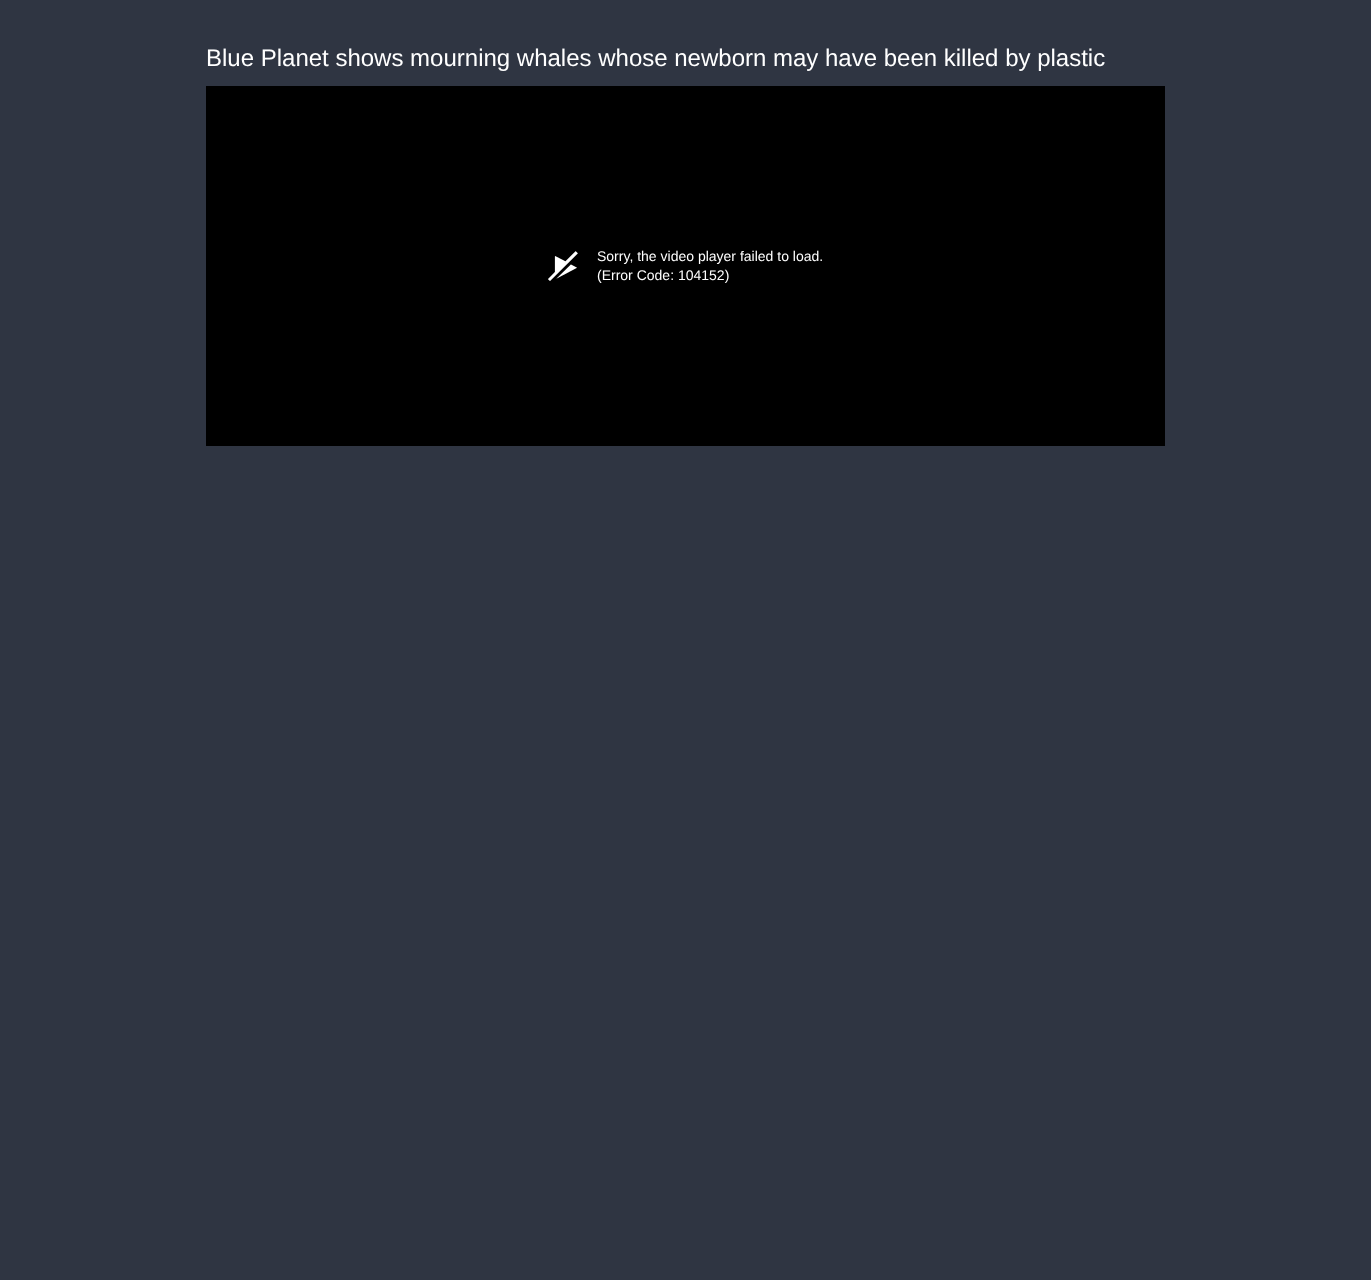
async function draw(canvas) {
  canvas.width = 1371
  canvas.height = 1280
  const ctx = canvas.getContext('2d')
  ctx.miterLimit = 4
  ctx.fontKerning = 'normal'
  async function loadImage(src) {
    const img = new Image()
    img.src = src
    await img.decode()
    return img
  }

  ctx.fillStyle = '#2f3542'
  ctx.fillRect(0, 0, 1371, 1280)
  ctx.font = '24px Liberation Sans'
  ctx.fillStyle = '#fff'
  ctx.fillText('Blue Planet shows mourning whales whose newborn may have been killed by plastic', 206, 66)
  ctx.fillStyle = '#000'
  ctx.fillRect(206, 86, 959, 360)
  ctx.drawImage(await loadImage('image0.png'), 548, 251, 30, 30)
  ctx.font = '14px Liberation Sans'
  ctx.fillStyle = '#fff'
  ctx.fillText('Sorry, the video player failed to load.', 597, 261)
  ctx.fillText('(Error Code: 104152)', 597, 280)
}

draw(document.querySelector('canvas'))
